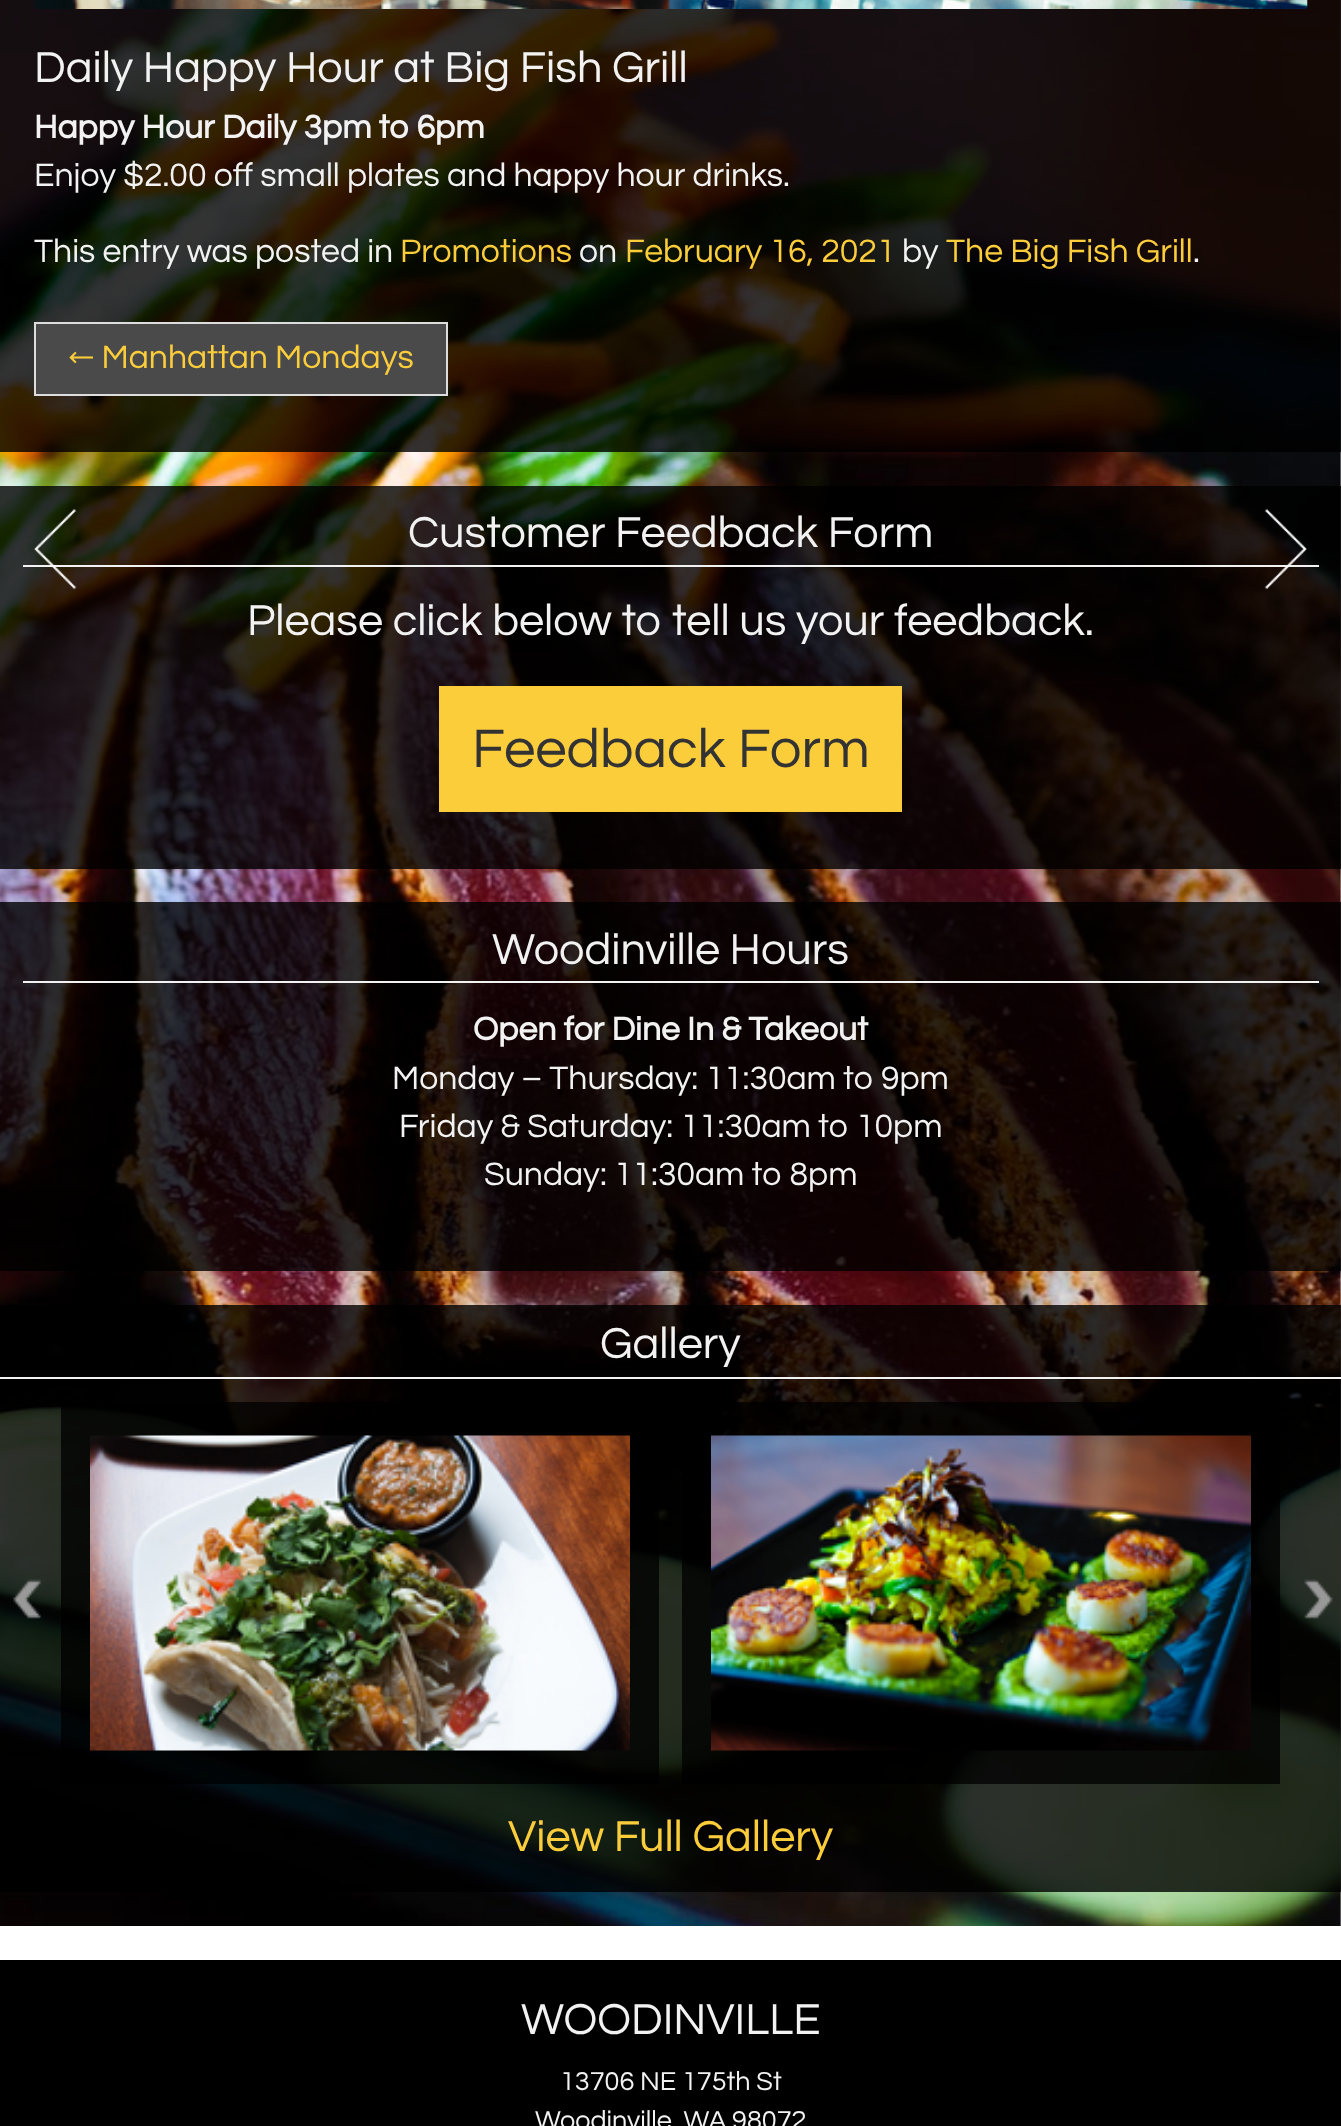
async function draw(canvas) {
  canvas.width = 1341
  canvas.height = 2126
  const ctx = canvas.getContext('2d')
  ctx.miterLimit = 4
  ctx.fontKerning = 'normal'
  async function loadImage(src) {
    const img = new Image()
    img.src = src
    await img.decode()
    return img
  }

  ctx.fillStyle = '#fff'
  ctx.fillRect(0, 0, 1341, 2126)
  ctx.drawImage(await loadImage('image0.png'), 0, 0, 1341, 1926)
  ctx.fillStyle = '#000000cc'
  ctx.fillRect(0, 0, 1341, 452)
  ctx.drawImage(await loadImage('image1.png'), 34, 0, 1274, 9)
  ctx.font = '45px Questrial'
  ctx.fillStyle = '#f2f2f2'
  ctx.fillText('Daily Happy Hour at Big Fish Grill', 34, 82)
  ctx.font = 'bold 33.75px Questrial'
  ctx.fillText('Happy Hour Daily 3pm to 6pm', 34, 138)
  ctx.font = '33.75px Questrial'
  ctx.fillText('Enjoy $2.00 off small plates and happy hour drinks.', 34, 186)
  ctx.fillText('This entry was posted in', 34, 262)
  ctx.fillStyle = '#fccd3b'
  ctx.fillText('Promotions', 400, 262)
  ctx.fillStyle = '#f2f2f2'
  ctx.fillText('on', 579, 262)
  ctx.fillStyle = '#fccd3b'
  ctx.fillText('February 16, 2021', 625, 262)
  ctx.fillStyle = '#f2f2f2'
  ctx.fillText('by', 902, 262)
  ctx.fillStyle = '#fccd3b'
  ctx.fillText('The Big Fish Grill', 946, 262)
  ctx.fillStyle = '#f2f2f2'
  ctx.fillText('.', 1193, 262)
  ctx.fillStyle = '#4a4a4a'
  ctx.beginPath()
  ctx.rect(35, 323, 412, 72)
  ctx.fill()
  ctx.strokeStyle = '#ddd'
  ctx.lineWidth = 2
  ctx.stroke()
  ctx.fillStyle = '#fccd3b'
  ctx.fillText('← Manhattan Mondays', 68, 368)
  ctx.fillStyle = '#000000cc'
  ctx.fillRect(0, 486, 1341, 383)
  ctx.fillStyle = '#f2f2f2'
  ctx.fillRect(23, 565, 1296, 2)
  ctx.font = '45px Questrial'
  ctx.fillText('Customer Feedback Form', 408, 547)
  ctx.fillText('Please click below to tell us your feedback.', 247, 635)
  ctx.fillStyle = '#fccd3b'
  ctx.fillRect(439, 686, 463, 126)
  ctx.font = '56.25px Questrial'
  ctx.fillStyle = '#333'
  ctx.fillText('Feedback Form', 472, 767)
  ctx.fillStyle = '#000000cc'
  ctx.fillRect(0, 902, 1341, 369)
  ctx.fillStyle = '#f2f2f2'
  ctx.fillRect(23, 981, 1296, 2)
  ctx.font = '45px Questrial'
  ctx.fillText('Woodinville Hours', 492, 964)
  ctx.font = 'bold 33.75px Questrial'
  ctx.fillText('Open for Dine In & Takeout', 473, 1040)
  ctx.font = '33.75px Questrial'
  ctx.fillText('Monday – Thursday: 11:30am to 9pm', 392, 1089)
  ctx.fillText('Friday & Saturday: 11:30am to 10pm', 399, 1137)
  ctx.fillText('Sunday: 11:30am to 8pm', 484, 1185)
  ctx.fillStyle = '#000000cc'
  ctx.fillRect(0, 1305, 1341, 479)
  ctx.fillStyle = '#f2f2f2'
  ctx.fillRect(0, 1377, 1341, 2)
  ctx.font = '45px Questrial'
  ctx.fillText('Gallery', 600, 1358)
  ctx.drawImage(await loadImage('image2.png'), 13, 1579, 29, 40)
  ctx.fillStyle = '#000000c2'
  ctx.fillRect(61, 1402, 598, 382)
  ctx.drawImage(await loadImage('image3.png'), 90, 1435, 540, 316)
  ctx.fillRect(682, 1402, 598, 382)
  ctx.drawImage(await loadImage('image4.png'), 711, 1435, 540, 316)
  ctx.drawImage(await loadImage('image5.png'), 1304, 1579, 29, 40)
  ctx.fillStyle = '#000000cc'
  ctx.fillRect(0, 1784, 1341, 108)
  ctx.fillStyle = '#fccd3b'
  ctx.fillText('View Full Gallery', 508, 1851)
  ctx.drawImage(await loadImage('image6.png'), 34, 508, 43, 82)
  ctx.drawImage(await loadImage('image7.png'), 1264, 508, 43, 82)
  ctx.fillStyle = '#000'
  ctx.fillRect(0, 1960, 1341, 166)
  ctx.fillStyle = '#f2f2f2'
  ctx.fillText('WOODINVILLE', 521, 2034)
  ctx.font = '27px Questrial'
  ctx.fillText('13706 NE 175th St', 560, 2090)
  ctx.fillText('Woodinville, WA 98072', 535, 2129)
}

draw(document.querySelector('canvas'))
